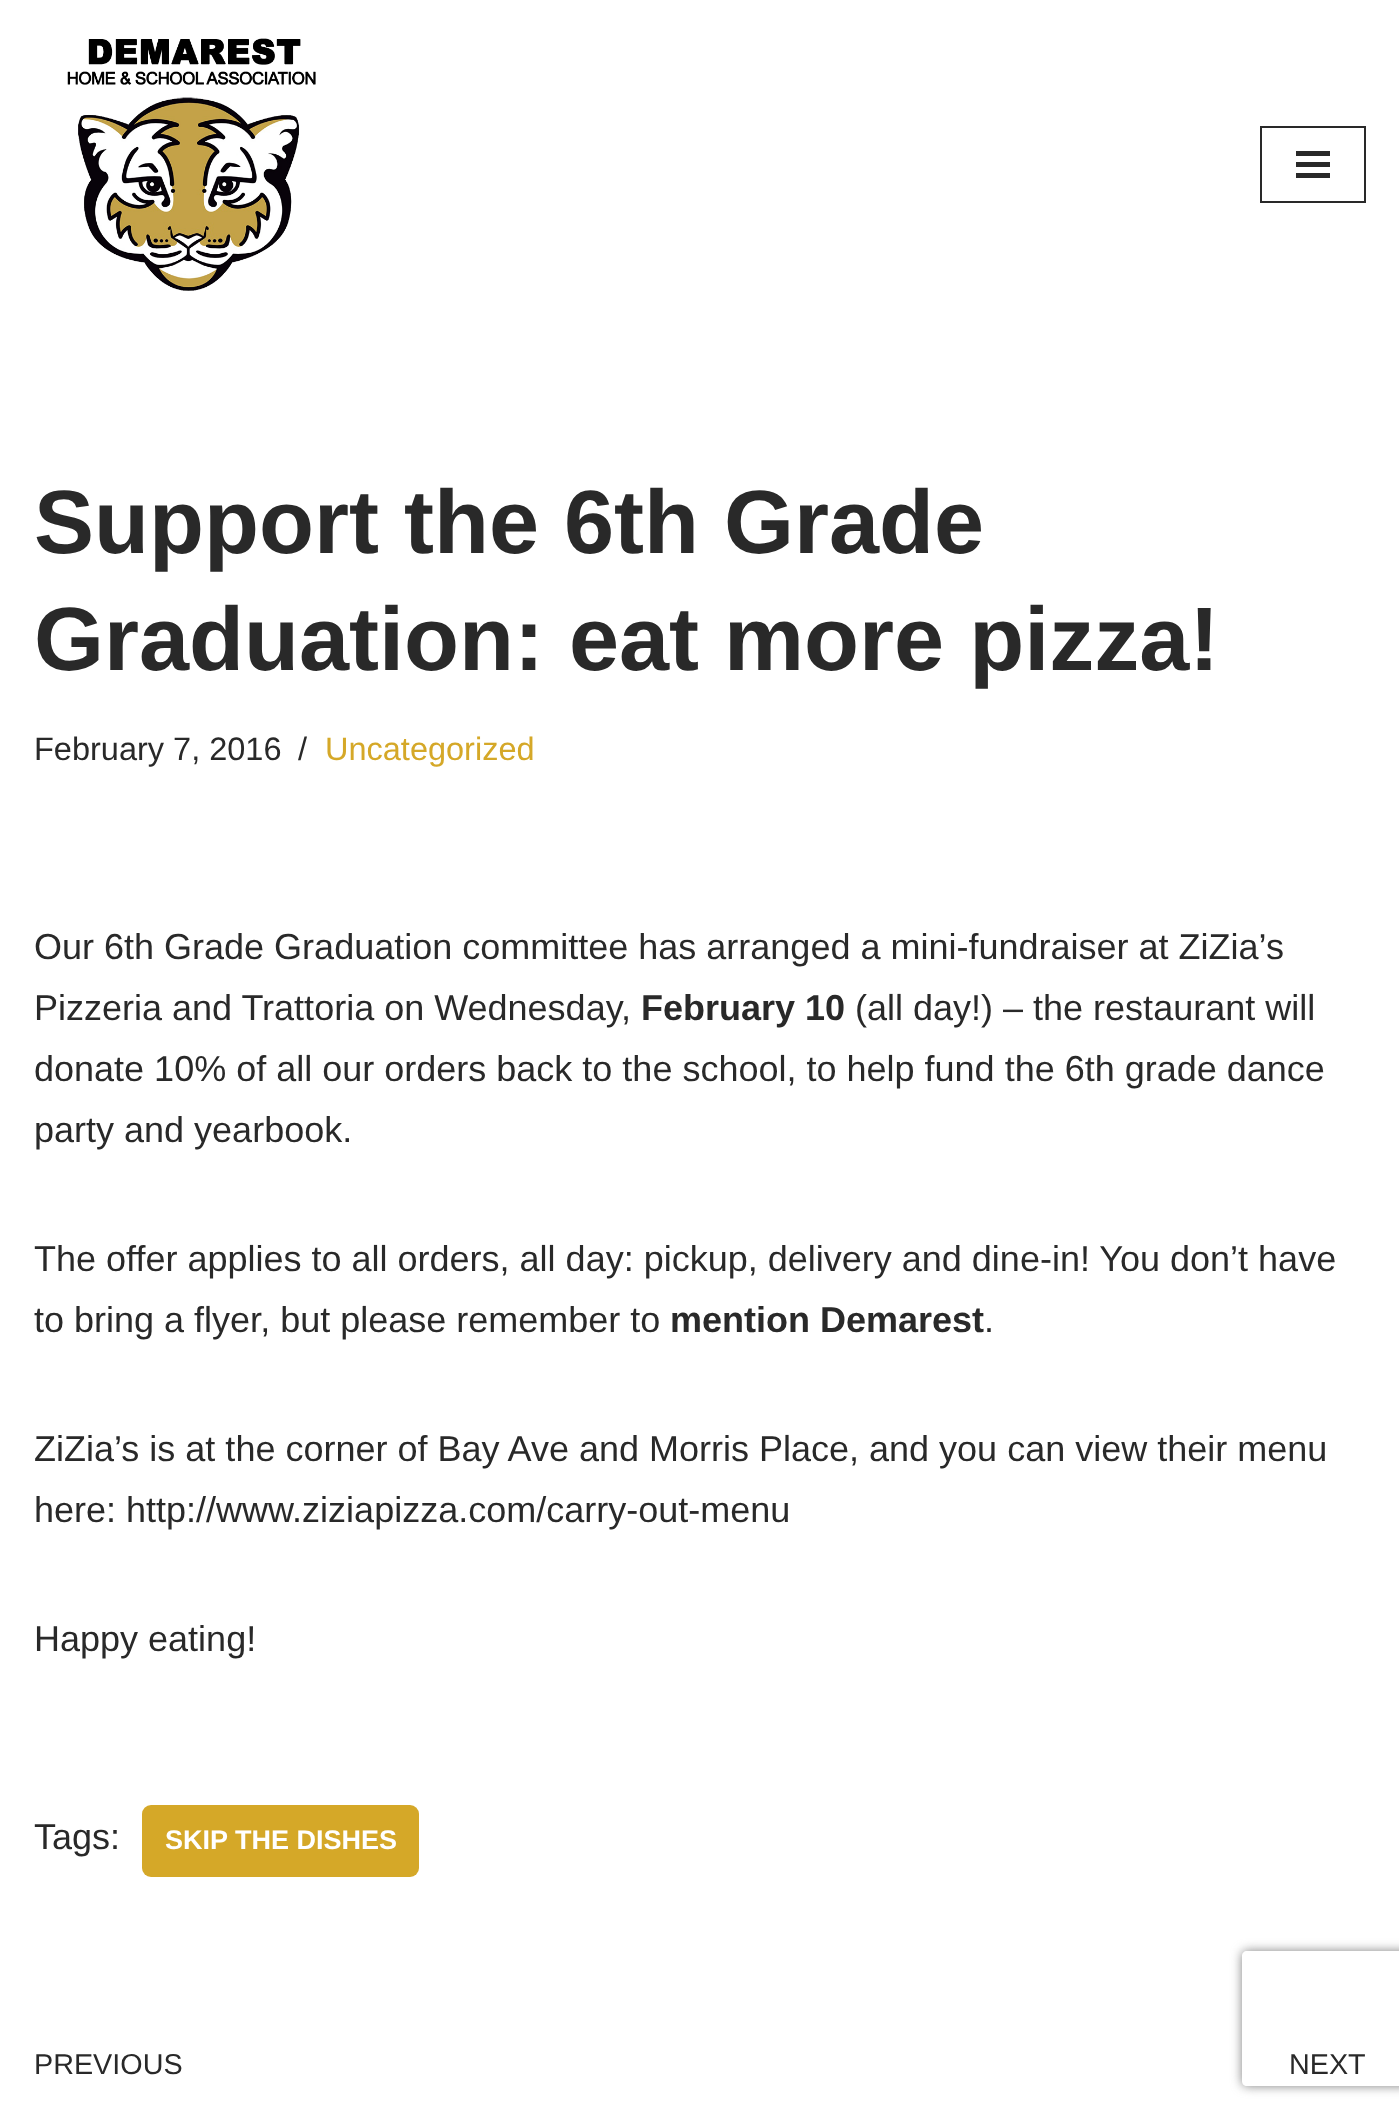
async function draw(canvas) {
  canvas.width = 1399
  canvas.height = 2117
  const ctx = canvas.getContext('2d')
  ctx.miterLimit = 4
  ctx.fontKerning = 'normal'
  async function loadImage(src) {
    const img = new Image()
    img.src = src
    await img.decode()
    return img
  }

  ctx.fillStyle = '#fff'
  ctx.fillRect(0, 0, 1399, 2117)
  ctx.drawImage(await loadImage('image0.png'), 67, 38, 249, 253)
  ctx.strokeStyle = '#292929'
  ctx.lineWidth = 2
  ctx.strokeRect(1261, 127, 104, 75)
  ctx.fillStyle = '#292929'
  ctx.fillRect(1296, 151, 34, 5)
  ctx.fillRect(1296, 162, 34, 5)
  ctx.fillRect(1296, 173, 34, 5)
  ctx.font = 'bold 90px Liberation Sans'
  ctx.fillText('Support the 6th Grade', 34, 553)
  ctx.fillText('Graduation: eat more pizza!', 34, 670)
  ctx.font = '32.5px Liberation Sans'
  ctx.fillText('February 7, 2016', 34, 760)
  ctx.fillText('/', 298, 760)
  ctx.fillStyle = '#d5a828'
  ctx.fillText('Uncategorized', 325, 760)
  ctx.font = '36px Liberation Sans'
  ctx.fillStyle = '#292929'
  ctx.fillText('Our 6th Grade Graduation committee has arranged a mini-fundraiser at ZiZia’s', 34, 959)
  ctx.fillText('Pizzeria and Trattoria on Wednesday,', 34, 1020)
  ctx.font = 'bold 36px Liberation Sans'
  ctx.fillText('February 10', 641, 1020)
  ctx.font = '36px Liberation Sans'
  ctx.fillText('(all day!) – the restaurant will', 855, 1020)
  ctx.fillText('donate 10% of all our orders back to the school, to help fund the 6th grade dance', 34, 1081)
  ctx.fillText('party and yearbook.', 34, 1142)
  ctx.fillText('The offer applies to all orders, all day: pickup, delivery and dine-in! You don’t have', 34, 1271)
  ctx.fillText('to bring a flyer, but please remember to', 34, 1332)
  ctx.font = 'bold 36px Liberation Sans'
  ctx.fillText('mention Demarest', 670, 1332)
  ctx.font = '36px Liberation Sans'
  ctx.fillText('.', 984, 1332)
  ctx.fillText('ZiZia’s is at the corner of Bay Ave and Morris Place, and you can view their menu', 34, 1461)
  ctx.fillText('here: http://www.ziziapizza.com/carry-out-menu', 34, 1522)
  ctx.fillText('Happy eating!', 34, 1651)
  ctx.fillText('Tags:', 34, 1849)
  ctx.fillStyle = '#d5a828'
  ctx.beginPath()
  ctx.roundRect(142, 1805, 277, 72, 9)
  ctx.fill()
  ctx.font = 'bold 27px Liberation Sans'
  ctx.fillStyle = '#fff'
  ctx.fillText('SKIP THE DISHES', 165, 1849)
  ctx.font = '28.75px Liberation Sans'
  ctx.fillStyle = '#292929'
  ctx.fillText('PREVIOUS', 34, 2074)
  ctx.fillText('NEXT', 1289, 2074)
  ctx.save()
  ctx.beginPath()
  ctx.moveTo(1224, 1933)
  ctx.lineTo(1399, 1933)
  ctx.lineTo(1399, 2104)
  ctx.lineTo(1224, 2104)
  ctx.closePath()
  ctx.moveTo(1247, 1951)
  ctx.lineTo(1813, 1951)
  ctx.bezierCurveTo(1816, 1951, 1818, 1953, 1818, 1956)
  ctx.lineTo(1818, 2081)
  ctx.bezierCurveTo(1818, 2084, 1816, 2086, 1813, 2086)
  ctx.lineTo(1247, 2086)
  ctx.bezierCurveTo(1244, 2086, 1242, 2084, 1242, 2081)
  ctx.lineTo(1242, 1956)
  ctx.bezierCurveTo(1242, 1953, 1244, 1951, 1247, 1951)
  ctx.closePath()
  ctx.clip('evenodd')
  ctx.fillStyle = '#808080'
  ctx.filter = 'blur(5.5px)'
  ctx.beginPath()
  ctx.roundRect(1242, 1951, 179, 135, 5)
  ctx.fill()
  ctx.filter = 'none'
  ctx.restore()
}

draw(document.querySelector('canvas'))
